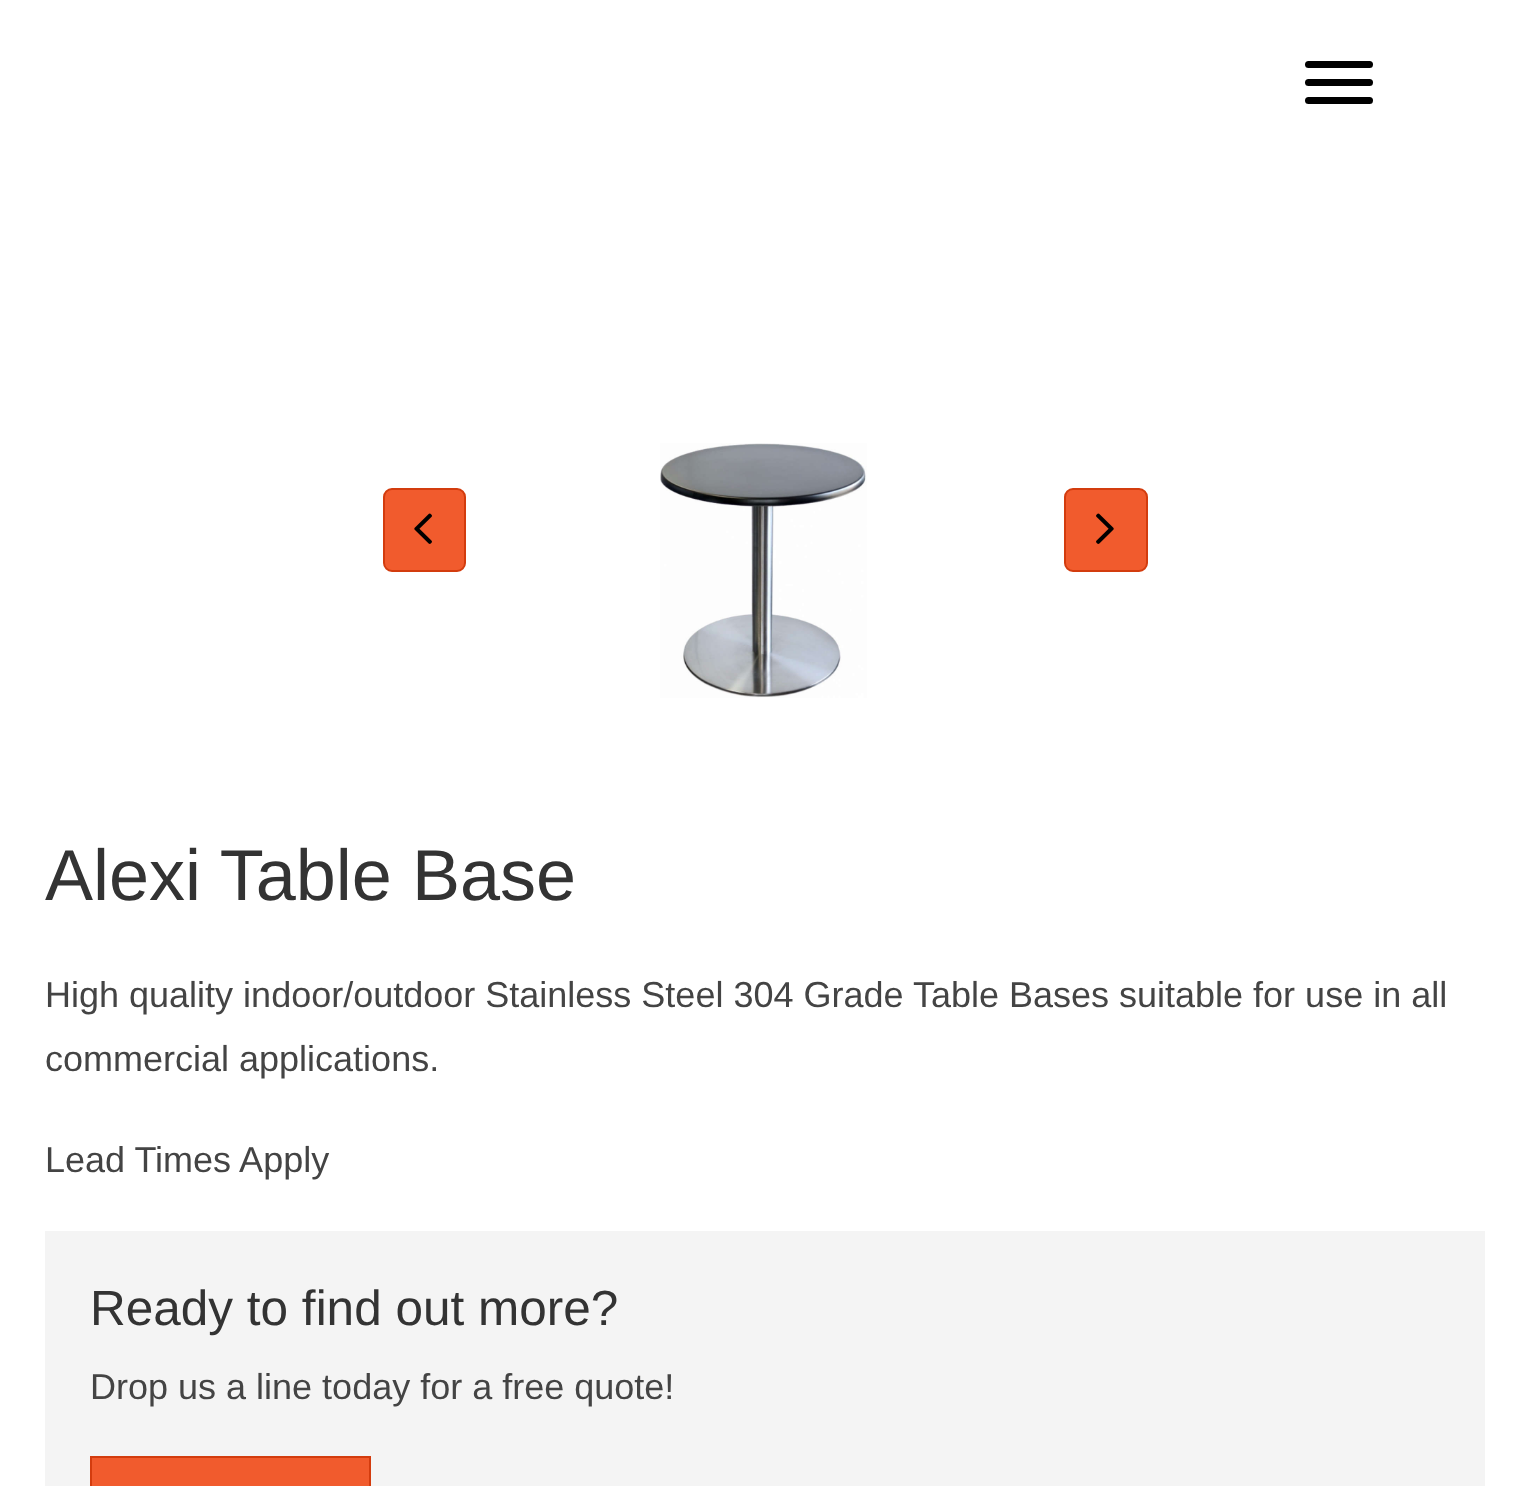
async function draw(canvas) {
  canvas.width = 1528
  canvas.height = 1486
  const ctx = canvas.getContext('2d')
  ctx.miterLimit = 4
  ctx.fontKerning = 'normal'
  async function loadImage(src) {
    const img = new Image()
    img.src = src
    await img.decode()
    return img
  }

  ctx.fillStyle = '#fff'
  ctx.fillRect(0, 0, 1528, 1486)
  ctx.fillStyle = '#000'
  ctx.beginPath()
  ctx.roundRect(1305, 79, 68, 7, 3.5)
  ctx.fill()
  ctx.beginPath()
  ctx.roundRect(1305, 61, 68, 7, 3.5)
  ctx.fill()
  ctx.beginPath()
  ctx.roundRect(1305, 97, 68, 7, 3.5)
  ctx.fill()
  ctx.fillStyle = '#f15b2d'
  ctx.beginPath()
  ctx.roundRect(384, 489, 81, 82, 8)
  ctx.fill()
  ctx.strokeStyle = '#d33c0e'
  ctx.lineWidth = 2
  ctx.stroke()
  ctx.drawImage(await loadImage('image0.png'), 414, 513, 18, 31)
  ctx.drawImage(await loadImage('image1.png'), 660, 443, 207, 255)
  ctx.beginPath()
  ctx.roundRect(1065, 489, 82, 82, 8)
  ctx.fill()
  ctx.stroke()
  ctx.drawImage(await loadImage('image2.png'), 1096, 513, 18, 31)
  ctx.font = '72px Liberation Sans'
  ctx.fillStyle = '#333'
  ctx.fillText('Alexi Table Base', 45, 900)
  ctx.font = '36px Liberation Sans'
  ctx.fillStyle = '#444'
  ctx.fillText('High quality indoor/outdoor Stainless Steel 304 Grade Table Bases suitable for use in all', 45, 1007)
  ctx.fillText('commercial applications.', 45, 1071)
  ctx.fillText('Lead Times Apply', 45, 1172)
  ctx.fillStyle = '#f4f4f4'
  ctx.fillRect(45, 1231, 1440, 255)
  ctx.font = '49.5px Liberation Sans'
  ctx.fillStyle = '#333'
  ctx.fillText('Ready to find out more?', 90, 1325)
  ctx.font = '36px Liberation Sans'
  ctx.fillStyle = '#444'
  ctx.fillText('Drop us a line today for a free quote!', 90, 1399)
  ctx.fillStyle = '#f15b2d'
  ctx.beginPath()
  ctx.rect(91, 1457, 279, 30)
  ctx.fill()
  ctx.stroke()
}

draw(document.querySelector('canvas'))
